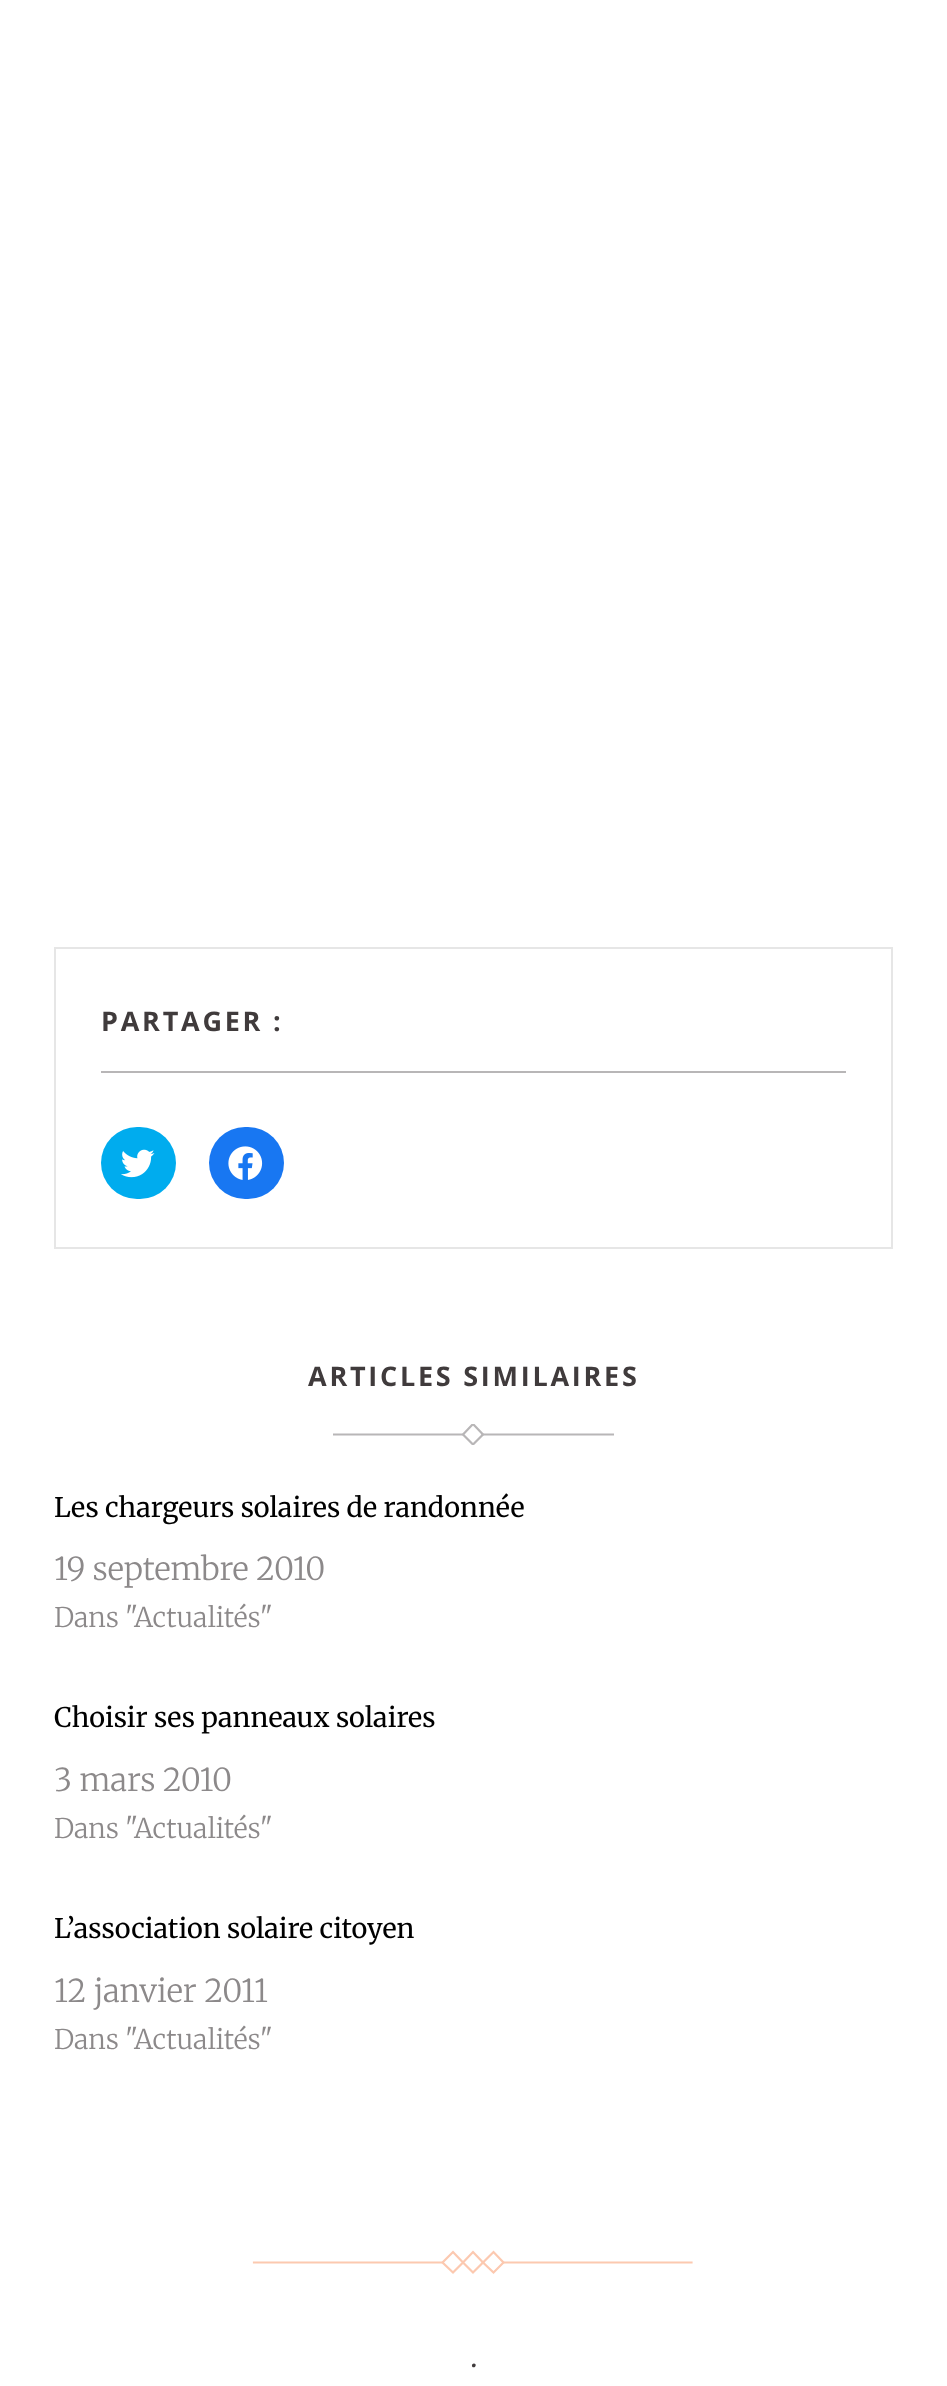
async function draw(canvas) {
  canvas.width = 947
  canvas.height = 2386
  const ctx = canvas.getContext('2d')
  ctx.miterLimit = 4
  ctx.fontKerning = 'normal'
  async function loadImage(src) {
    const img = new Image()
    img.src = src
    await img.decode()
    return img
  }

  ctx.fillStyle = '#fff'
  ctx.fillRect(0, 0, 947, 2386)
  ctx.strokeStyle = '#e6e6e6'
  ctx.lineWidth = 2
  ctx.strokeRect(55, 948, 837, 300)
  ctx.fillStyle = '#b8b6b7'
  ctx.fillRect(101, 1071, 745, 2)
  ctx.letterSpacing = '2.75px'
  ctx.font = 'bold 27px Open Sans'
  ctx.fillStyle = '#403b3c'
  ctx.fillText('PARTAGER :', 101, 1031)
  ctx.fillStyle = '#00acee'
  ctx.beginPath()
  ctx.roundRect(101, 1127, 75, 72, 36)
  ctx.fill()
  ctx.drawImage(await loadImage('image0.png'), 121, 1149, 34, 29)
  ctx.fillStyle = '#1877f2'
  ctx.beginPath()
  ctx.roundRect(209, 1127, 75, 72, 36)
  ctx.fill()
  ctx.drawImage(await loadImage('image1.png'), 228, 1146, 35, 34)
  ctx.fillStyle = '#403b3c'
  ctx.fillText('ARTICLES SIMILAIRES', 308, 1386)
  ctx.save()
  ctx.beginPath()
  ctx.rect(333, 1424, 281, 21)
  ctx.clip()
  ctx.beginPath()
  ctx.moveTo(463, 1434.5)
  ctx.lineTo(473, 1424)
  ctx.lineTo(483, 1434.5)
  ctx.lineTo(473, 1444.5)
  ctx.closePath()
  ctx.strokeStyle = '#b8b6b7'
  ctx.lineWidth = 2.2
  ctx.stroke()
  ctx.beginPath()
  ctx.moveTo(319.5, 1434.5)
  ctx.lineTo(464, 1434.5)
  ctx.stroke()
  ctx.beginPath()
  ctx.moveTo(481.5, 1434.5)
  ctx.lineTo(626, 1434.5)
  ctx.stroke()
  ctx.restore()
  ctx.letterSpacing = '0px'
  ctx.font = '27px Merriweather'
  ctx.fillStyle = '#000'
  ctx.fillText('Les chargeurs solaires de randonnée', 54, 1517)
  ctx.font = '300 31.5px Merriweather'
  ctx.fillStyle = '#8c898a'
  ctx.fillText('19 septembre 2010', 54, 1580)
  ctx.font = '300 27px Merriweather'
  ctx.fillText('Dans "Actualités"', 54, 1627)
  ctx.font = '27px Merriweather'
  ctx.fillStyle = '#000'
  ctx.fillText('Choisir ses panneaux solaires', 54, 1727)
  ctx.font = '300 31.5px Merriweather'
  ctx.fillStyle = '#8c898a'
  ctx.fillText('3 mars 2010', 54, 1791)
  ctx.font = '300 27px Merriweather'
  ctx.fillText('Dans "Actualités"', 54, 1838)
  ctx.font = '27px Merriweather'
  ctx.fillStyle = '#000'
  ctx.fillText('L’association solaire citoyen', 54, 1938)
  ctx.font = '300 31.5px Merriweather'
  ctx.fillStyle = '#8c898a'
  ctx.fillText('12 janvier 2011', 54, 2002)
  ctx.font = '300 27px Merriweather'
  ctx.fillText('Dans "Actualités"', 54, 2049)
  ctx.beginPath()
  ctx.moveTo(463, 2262.5)
  ctx.lineTo(473, 2252)
  ctx.lineTo(483, 2262.5)
  ctx.lineTo(473, 2272.5)
  ctx.closePath()
  ctx.moveTo(442.5, 2262.5)
  ctx.lineTo(453, 2252)
  ctx.lineTo(463, 2262.5)
  ctx.lineTo(453, 2272.5)
  ctx.closePath()
  ctx.strokeStyle = '#fcc9b0'
  ctx.lineWidth = 2.2
  ctx.stroke()
  ctx.beginPath()
  ctx.moveTo(254, 2262.5)
  ctx.lineTo(441.5, 2262.5)
  ctx.lineCap = 'square'
  ctx.stroke()
  ctx.beginPath()
  ctx.moveTo(483, 2262.5)
  ctx.lineTo(493.5, 2252)
  ctx.lineTo(503.5, 2262.5)
  ctx.lineTo(493.5, 2272.5)
  ctx.closePath()
  ctx.lineCap = 'butt'
  ctx.stroke()
  ctx.beginPath()
  ctx.moveTo(504, 2262.5)
  ctx.lineTo(691.5, 2262.5)
  ctx.lineCap = 'square'
  ctx.stroke()
  ctx.font = '300 31.5px Merriweather'
  ctx.fillStyle = '#403b3c'
  ctx.fillText('.', 470, 2367)
}

draw(document.querySelector('canvas'))
